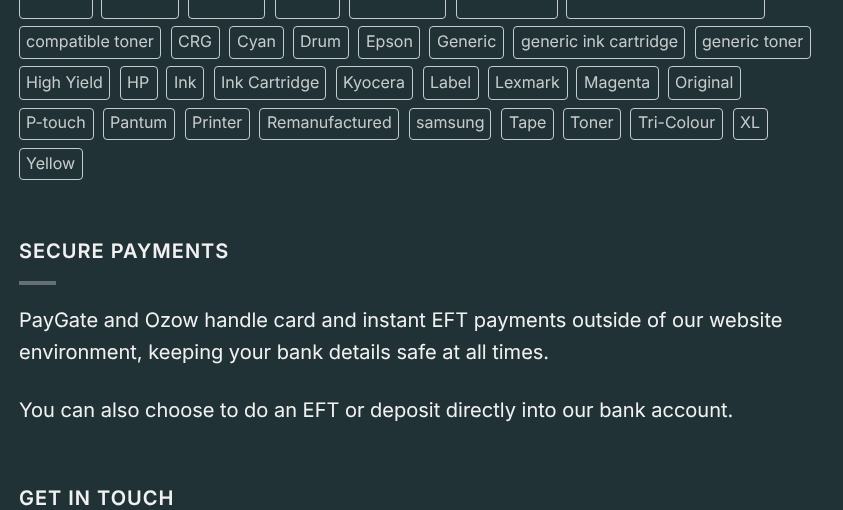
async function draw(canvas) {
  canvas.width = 843
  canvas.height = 510
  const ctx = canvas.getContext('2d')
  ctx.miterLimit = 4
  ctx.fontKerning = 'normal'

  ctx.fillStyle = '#213236'
  ctx.fillRect(0, 0, 843, 510)
  ctx.beginPath()
  ctx.roundRect(19.5, -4.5, 73, 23, 3.5)
  ctx.strokeStyle = '#c7cbcc'
  ctx.stroke()
  ctx.beginPath()
  ctx.roundRect(101.5, -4.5, 77, 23, 3.5)
  ctx.stroke()
  ctx.beginPath()
  ctx.roundRect(188.5, -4.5, 76, 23, 3.5)
  ctx.stroke()
  ctx.beginPath()
  ctx.roundRect(275.5, -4.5, 64, 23, 3.5)
  ctx.stroke()
  ctx.beginPath()
  ctx.roundRect(349.5, -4.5, 96, 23, 3.5)
  ctx.stroke()
  ctx.beginPath()
  ctx.roundRect(456.5, -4.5, 101, 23, 3.5)
  ctx.stroke()
  ctx.beginPath()
  ctx.roundRect(566.5, -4.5, 198, 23, 3.5)
  ctx.stroke()
  ctx.beginPath()
  ctx.roundRect(19.5, 26.5, 141, 32, 3.5)
  ctx.stroke()
  ctx.font = '16px Inter'
  ctx.fillStyle = '#c7cbcc'
  ctx.fillText('compatible toner', 26, 47)
  ctx.beginPath()
  ctx.roundRect(171.5, 26.5, 48, 32, 3.5)
  ctx.stroke()
  ctx.fillText('CRG', 178, 47)
  ctx.beginPath()
  ctx.roundRect(229.5, 26.5, 54, 32, 3.5)
  ctx.stroke()
  ctx.fillText('Cyan', 237, 47)
  ctx.beginPath()
  ctx.roundRect(293.5, 26.5, 55, 32, 3.5)
  ctx.stroke()
  ctx.fillText('Drum', 300, 47)
  ctx.beginPath()
  ctx.roundRect(358.5, 26.5, 61, 32, 3.5)
  ctx.stroke()
  ctx.fillText('Epson', 366, 47)
  ctx.beginPath()
  ctx.roundRect(429.5, 26.5, 74, 32, 3.5)
  ctx.stroke()
  ctx.fillText('Generic', 437, 47)
  ctx.beginPath()
  ctx.roundRect(513.5, 26.5, 171, 32, 3.5)
  ctx.stroke()
  ctx.fillText('generic ink cartridge', 521, 47)
  ctx.beginPath()
  ctx.roundRect(695.5, 26.5, 115, 32, 3.5)
  ctx.stroke()
  ctx.fillText('generic toner', 702, 47)
  ctx.beginPath()
  ctx.roundRect(19.5, 66.5, 90, 33, 3.5)
  ctx.stroke()
  ctx.fillText('High Yield', 26, 88)
  ctx.beginPath()
  ctx.roundRect(120.5, 66.5, 37, 33, 3.5)
  ctx.stroke()
  ctx.fillText('HP', 127, 88)
  ctx.beginPath()
  ctx.roundRect(166.5, 66.5, 37, 33, 3.5)
  ctx.stroke()
  ctx.fillText('Ink', 174, 88)
  ctx.beginPath()
  ctx.roundRect(214.5, 66.5, 111, 33, 3.5)
  ctx.stroke()
  ctx.fillText('Ink Cartridge', 221, 88)
  ctx.beginPath()
  ctx.roundRect(336.5, 66.5, 76, 33, 3.5)
  ctx.stroke()
  ctx.fillText('Kyocera', 343, 88)
  ctx.beginPath()
  ctx.roundRect(423.5, 66.5, 55, 33, 3.5)
  ctx.stroke()
  ctx.fillText('Label', 430, 88)
  ctx.beginPath()
  ctx.roundRect(488.5, 66.5, 79, 33, 3.5)
  ctx.stroke()
  ctx.fillText('Lexmark', 495, 88)
  ctx.beginPath()
  ctx.roundRect(576.5, 66.5, 82, 33, 3.5)
  ctx.stroke()
  ctx.fillText('Magenta', 584, 88)
  ctx.beginPath()
  ctx.roundRect(668.5, 66.5, 72, 33, 3.5)
  ctx.stroke()
  ctx.fillText('Original', 675, 88)
  ctx.beginPath()
  ctx.roundRect(19.5, 108.5, 74, 31, 3.5)
  ctx.stroke()
  ctx.fillText('P-touch', 26, 128)
  ctx.beginPath()
  ctx.roundRect(103.5, 108.5, 71, 31, 3.5)
  ctx.stroke()
  ctx.fillText('Pantum', 110, 128)
  ctx.beginPath()
  ctx.roundRect(185.5, 108.5, 64, 31, 3.5)
  ctx.stroke()
  ctx.fillText('Printer', 192, 128)
  ctx.beginPath()
  ctx.roundRect(259.5, 108.5, 139, 31, 3.5)
  ctx.stroke()
  ctx.fillText('Remanufactured', 267, 128)
  ctx.beginPath()
  ctx.roundRect(409.5, 108.5, 81, 31, 3.5)
  ctx.stroke()
  ctx.fillText('samsung', 416, 128)
  ctx.beginPath()
  ctx.roundRect(501.5, 108.5, 52, 31, 3.5)
  ctx.stroke()
  ctx.fillText('Tape', 509, 128)
  ctx.beginPath()
  ctx.roundRect(563.5, 108.5, 57, 31, 3.5)
  ctx.stroke()
  ctx.fillText('Toner', 570, 128)
  ctx.beginPath()
  ctx.roundRect(630.5, 108.5, 92, 31, 3.5)
  ctx.stroke()
  ctx.fillText('Tri-Colour', 638, 128)
  ctx.beginPath()
  ctx.roundRect(733.5, 108.5, 34, 31, 3.5)
  ctx.stroke()
  ctx.fillText('XL', 740, 128)
  ctx.beginPath()
  ctx.roundRect(19.5, 148.5, 63, 31, 3.5)
  ctx.stroke()
  ctx.fillText('Yellow', 26, 169)
  ctx.letterSpacing = '1px'
  ctx.font = '600 20px Inter'
  ctx.fillStyle = '#f1f1f1'
  ctx.fillText('SECURE PAYMENTS', 19, 258)
  ctx.fillStyle = '#647072'
  ctx.fillRect(19, 281, 37, 4)
  ctx.letterSpacing = '0px'
  ctx.font = '20px Inter'
  ctx.fillStyle = '#f1f1f1'
  ctx.fillText('PayGate and Ozow handle card and instant EFT payments outside of our website', 19, 327)
  ctx.fillText('environment, keeping your bank details safe at all times.', 19, 359)
  ctx.fillText('You can also choose to do an EFT or deposit directly into our bank account.', 19, 417)
  ctx.letterSpacing = '1px'
  ctx.font = '600 20px Inter'
  ctx.fillText('GET IN TOUCH', 19, 505)
}

draw(document.querySelector('canvas'))
